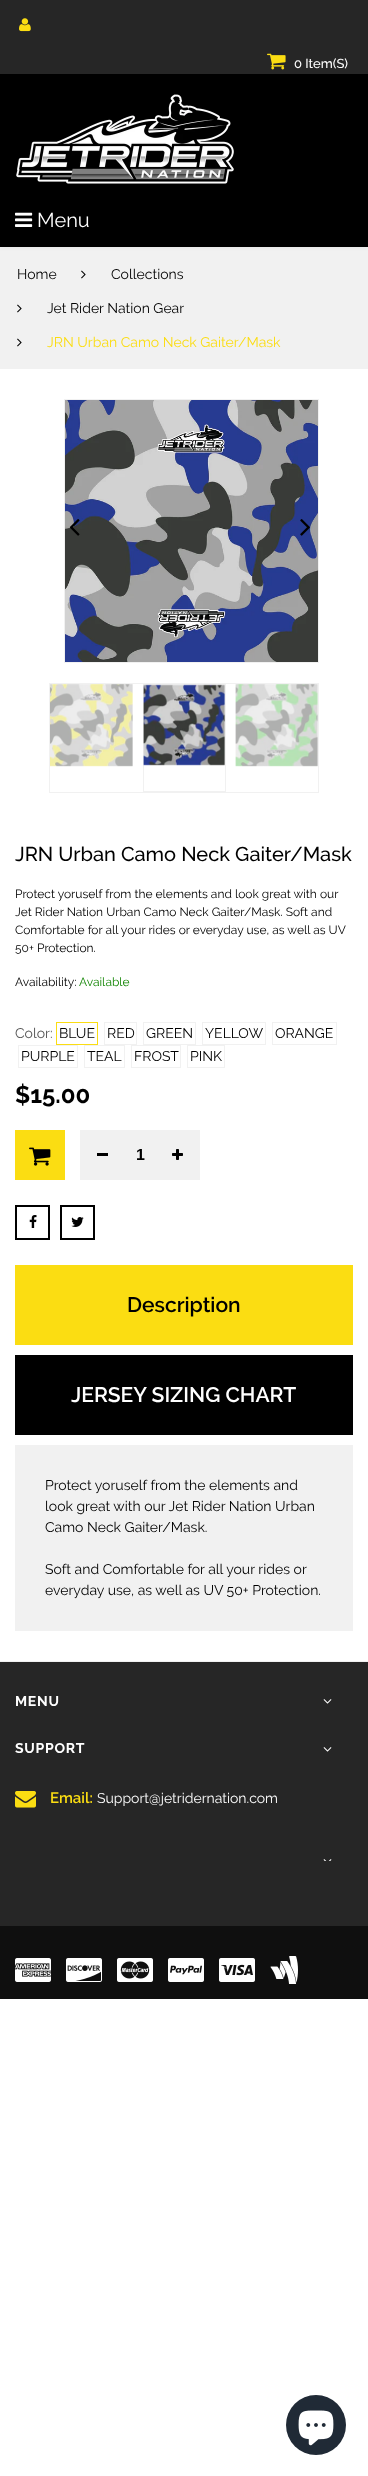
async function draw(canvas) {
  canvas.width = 368
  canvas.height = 2476
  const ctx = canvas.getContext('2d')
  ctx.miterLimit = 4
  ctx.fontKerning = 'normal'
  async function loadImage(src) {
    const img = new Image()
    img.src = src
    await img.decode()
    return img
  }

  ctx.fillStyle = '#fff'
  ctx.fillRect(0, 0, 368, 2476)
  ctx.fillStyle = '#f1f1f1'
  ctx.fillRect(0, 247, 368, 122)
  ctx.fillStyle = '#0000000d'
  ctx.filter = 'blur(2.5px)'
  ctx.beginPath()
  ctx.rect(0, 0, 368, 247)
  ctx.fill()
  ctx.filter = 'none'
  ctx.fillStyle = '#262626'
  ctx.fillRect(0, 0, 368, 74)
  ctx.drawImage(await loadImage('image0.png'), 19, 18, 12, 14)
  ctx.drawImage(await loadImage('image1.png'), 267, 53, 19, 17)
  ctx.font = '500 13px Raleway'
  ctx.fillStyle = '#fff'
  ctx.fillText('0 Item(S)', 294, 68)
  ctx.fillStyle = '#000'
  ctx.fillRect(0, 74, 368, 173)
  ctx.drawImage(await loadImage('image2.png'), 16, 94, 218, 90)
  ctx.drawImage(await loadImage('image3.png'), 15, 212, 18, 15)
  ctx.font = '20px Raleway'
  ctx.fillStyle = '#fff'
  ctx.fillText('Menu', 37, 227)
  ctx.font = '14px Raleway'
  ctx.fillStyle = '#000'
  ctx.fillText('Home', 17, 279)
  ctx.drawImage(await loadImage('image4.png'), 81, 270, 5, 9)
  ctx.fillText('Collections', 111, 279)
  ctx.drawImage(await loadImage('image4.png'), 17, 304, 5, 9)
  ctx.fillText('Jet Rider Nation Gear', 47, 313)
  ctx.drawImage(await loadImage('image4.png'), 17, 338, 5, 9)
  ctx.fillStyle = '#fbdd12'
  ctx.fillText('JRN Urban Camo Neck Gaiter/Mask', 47, 347)
  ctx.strokeStyle = '#f1f1f1'
  ctx.strokeRect(64.5, 399.5, 254, 263)
  ctx.drawImage(await loadImage('image5.png'), 65, 400, 253, 262)
  ctx.drawImage(await loadImage('image6.png'), 69, 519, 11, 17)
  ctx.drawImage(await loadImage('image7.png'), 300, 519, 10, 17)
  ctx.strokeRect(49.5, 683.5, 269, 109)
  ctx.drawImage(await loadImage('image8.png'), 50, 684, 83, 83)
  ctx.strokeRect(143.5, 684.5, 82, 107)
  ctx.drawImage(await loadImage('image9.png'), 143, 684, 82, 82)
  ctx.drawImage(await loadImage('image10.png'), 235, 684, 83, 83)
  ctx.font = '500 20px Raleway'
  ctx.fillStyle = '#000'
  ctx.fillText('JRN Urban Camo Neck Gaiter/Mask', 15, 861)
  ctx.font = '12px Raleway'
  ctx.fillText('Protect yoruself from the elements and look great with our', 15, 898)
  ctx.fillText('Jet Rider Nation Urban Camo Neck Gaiter/Mask. Soft and', 15, 916)
  ctx.fillText('Comfortable for all your rides or everyday use, as well as UV', 15, 934)
  ctx.fillText('50+ Protection.', 15, 952)
  ctx.fillText('Availability:', 15, 986)
  ctx.fillStyle = '#118502'
  ctx.fillText('Available', 79, 986)
  ctx.font = '14px Raleway'
  ctx.fillStyle = '#555'
  ctx.fillText('Color:', 15, 1038)
  ctx.strokeStyle = '#fbdd12'
  ctx.strokeRect(56.5, 1022.5, 41, 22)
  ctx.fillStyle = '#000'
  ctx.fillText('BLUE', 59, 1038)
  ctx.strokeStyle = '#f1f1f1'
  ctx.strokeRect(104.5, 1022.5, 32, 22)
  ctx.fillText('RED', 107, 1038)
  ctx.strokeRect(143.5, 1022.5, 52, 22)
  ctx.fillText('GREEN', 146, 1038)
  ctx.strokeRect(202.5, 1022.5, 63, 22)
  ctx.fillText('YELLOW', 205, 1038)
  ctx.strokeRect(272.5, 1022.5, 64, 22)
  ctx.fillText('ORANGE', 275, 1038)
  ctx.strokeRect(18.5, 1045.5, 59, 22)
  ctx.fillText('PURPLE', 21, 1061)
  ctx.strokeRect(84.5, 1045.5, 40, 22)
  ctx.fillText('TEAL', 87, 1061)
  ctx.strokeRect(131.5, 1045.5, 49, 22)
  ctx.fillText('FROST', 134, 1061)
  ctx.strokeRect(187.5, 1045.5, 37, 22)
  ctx.fillText('PINK', 190, 1061)
  ctx.font = 'bold 24px Raleway'
  ctx.fillText('$15.00', 15, 1103)
  ctx.fillStyle = '#fbdd12'
  ctx.fillRect(15, 1130, 50, 50)
  ctx.drawImage(await loadImage('image11.png'), 29, 1147, 22, 19)
  ctx.fillStyle = '#f1f1f1'
  ctx.fillRect(80, 1130, 120, 50)
  ctx.fillStyle = '#000'
  ctx.fillRect(97, 1153, 11, 3)
  ctx.font = 'bold 16px Liberation Sans'
  ctx.fillText('1', 136, 1160)
  ctx.drawImage(await loadImage('image12.png'), 172, 1149, 11, 11)
  ctx.strokeStyle = '#000'
  ctx.lineWidth = 2
  ctx.strokeRect(16, 1206, 33, 33)
  ctx.drawImage(await loadImage('image13.png'), 29, 1215, 8, 13)
  ctx.strokeRect(61, 1206, 33, 33)
  ctx.drawImage(await loadImage('image14.png'), 71, 1217, 13, 10)
  ctx.fillStyle = '#fbdd12'
  ctx.fillRect(15, 1265, 338, 80)
  ctx.font = '600 21px Raleway'
  ctx.fillStyle = '#000'
  ctx.fillText('Description', 127, 1312)
  ctx.fillRect(15, 1355, 338, 80)
  ctx.fillStyle = '#fff'
  ctx.fillText('JERSEY SIZING CHART', 71, 1402)
  ctx.fillStyle = '#f1f1f1'
  ctx.fillRect(15, 1445, 338, 186)
  ctx.font = '14px Raleway'
  ctx.fillStyle = '#000'
  ctx.fillText('Protect yoruself from the elements and', 45, 1490)
  ctx.fillText('look great with our Jet Rider Nation Urban', 45, 1511)
  ctx.fillText('Camo Neck Gaiter/Mask.', 45, 1532)
  ctx.fillText('Soft and Comfortable for all your rides or', 45, 1574)
  ctx.fillText('everyday use, as well as UV 50+ Protection.', 45, 1595)
  ctx.fillStyle = '#262626'
  ctx.fillRect(0, 1662, 368, 264)
  ctx.fillStyle = '#f1f1f1'
  ctx.fillRect(0, 1661, 368, 1)
  ctx.letterSpacing = '0.75px'
  ctx.font = 'bold 14px Raleway'
  ctx.fillStyle = '#fff'
  ctx.fillText('MENU', 15, 1706)
  ctx.drawImage(await loadImage('image15.png'), 323, 1699, 9, 5)
  ctx.fillText('SUPPORT', 15, 1753)
  ctx.drawImage(await loadImage('image15.png'), 323, 1747, 9, 5)
  ctx.drawImage(await loadImage('image16.png'), 15, 1791, 21, 17)
  ctx.letterSpacing = '0px'
  ctx.font = '600 15px Raleway'
  ctx.fillStyle = '#fbdd12'
  ctx.fillText('Email:', 50, 1803)
  ctx.font = '14px Raleway'
  ctx.fillStyle = '#fff'
  ctx.fillText('Support@jetridernation.com', 97, 1803)
  ctx.drawImage(await loadImage('image17.png'), 323, 1859, 9, 2)
  ctx.fillStyle = '#0f0f0f'
  ctx.fillRect(0, 1926, 368, 73)
  ctx.drawImage(await loadImage('image18.png'), 15, 1958, 36, 24)
  ctx.drawImage(await loadImage('image19.png'), 66, 1958, 36, 24)
  ctx.drawImage(await loadImage('image20.png'), 117, 1958, 36, 24)
  ctx.drawImage(await loadImage('image21.png'), 168, 1958, 36, 24)
  ctx.drawImage(await loadImage('image22.png'), 219, 1958, 36, 24)
  ctx.drawImage(await loadImage('image23.png'), 270, 1956, 28, 28)
  ctx.fillStyle = '#202a36'
  ctx.beginPath()
  ctx.arc(316, 2425, 30, 0, 2 * Math.PI)
  ctx.fill()
  ctx.drawImage(await loadImage('image24.png'), 298, 2410, 36, 36)
}

draw(document.querySelector('canvas'))
